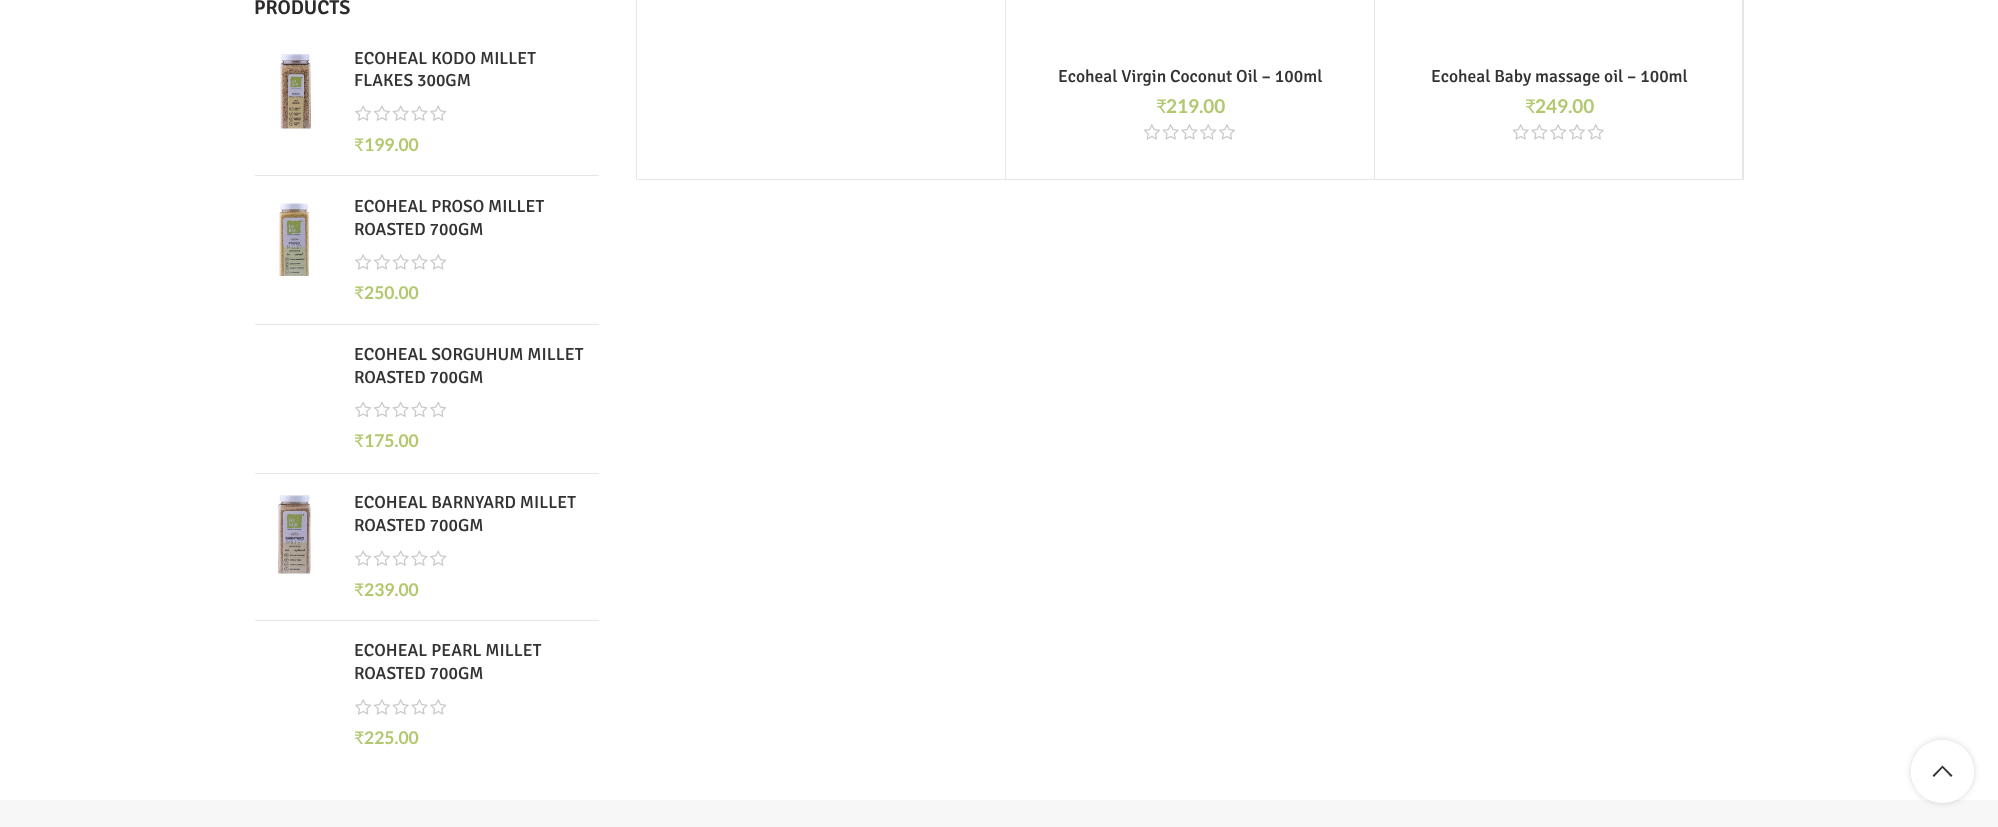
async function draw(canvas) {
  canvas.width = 1998
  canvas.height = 827
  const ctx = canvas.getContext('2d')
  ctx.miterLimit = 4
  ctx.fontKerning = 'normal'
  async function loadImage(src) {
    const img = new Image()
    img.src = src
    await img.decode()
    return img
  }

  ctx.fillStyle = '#fff'
  ctx.fillRect(0, 0, 1998, 827)
  ctx.font = '600 20px Signika'
  ctx.fillStyle = '#2d2a2a'
  ctx.fillText('PRODUCTS', 254, 14)
  ctx.fillStyle = '#e6e6e6'
  ctx.fillRect(255, 175, 344, 1)
  ctx.drawImage(await loadImage('image0.png'), 280, 54, 31, 75)
  ctx.font = '500 17.5px Signika'
  ctx.fillStyle = '#333'
  ctx.fillText('ECOHEAL KODO MILLET', 354, 64)
  ctx.fillText('FLAKES 300GM', 354, 86)
  ctx.drawImage(await loadImage('image1.png'), 355, 105, 92, 16)
  ctx.font = '17.5px Lato'
  ctx.fillStyle = '#b1c86e'
  ctx.fillText('₹', 354, 151)
  ctx.font = 'bold 17.5px Lato'
  ctx.fillText('199.00', 364, 151)
  ctx.fillStyle = '#e6e6e6'
  ctx.fillRect(255, 324, 344, 1)
  ctx.drawImage(await loadImage('image2.png'), 279, 203, 31, 73)
  ctx.font = '500 17.5px Signika'
  ctx.fillStyle = '#333'
  ctx.fillText('ECOHEAL PROSO MILLET', 354, 212)
  ctx.fillText('ROASTED 700GM', 354, 235)
  ctx.drawImage(await loadImage('image3.png'), 355, 254, 92, 16)
  ctx.font = '17.5px Lato'
  ctx.fillStyle = '#b1c86e'
  ctx.fillText('₹', 354, 299)
  ctx.font = 'bold 17.5px Lato'
  ctx.fillText('250.00', 364, 299)
  ctx.fillStyle = '#e6e6e6'
  ctx.fillRect(255, 473, 344, 1)
  ctx.font = '500 17.5px Signika'
  ctx.fillStyle = '#333'
  ctx.fillText('ECOHEAL SORGUHUM MILLET', 354, 360)
  ctx.fillText('ROASTED 700GM', 354, 383)
  ctx.drawImage(await loadImage('image4.png'), 355, 401, 92, 16)
  ctx.font = '17.5px Lato'
  ctx.fillStyle = '#b1c86e'
  ctx.fillText('₹', 354, 447)
  ctx.font = 'bold 17.5px Lato'
  ctx.fillText('175.00', 364, 447)
  ctx.fillStyle = '#e6e6e6'
  ctx.fillRect(255, 620, 344, 1)
  ctx.drawImage(await loadImage('image5.png'), 278, 495, 33, 79)
  ctx.font = '500 17.5px Signika'
  ctx.fillStyle = '#333'
  ctx.fillText('ECOHEAL BARNYARD MILLET', 354, 508)
  ctx.fillText('ROASTED 700GM', 354, 531)
  ctx.drawImage(await loadImage('image1.png'), 355, 550, 92, 16)
  ctx.font = '17.5px Lato'
  ctx.fillStyle = '#b1c86e'
  ctx.fillText('₹', 354, 596)
  ctx.font = 'bold 17.5px Lato'
  ctx.fillText('239.00', 364, 596)
  ctx.font = '500 17.5px Signika'
  ctx.fillStyle = '#333'
  ctx.fillText('ECOHEAL PEARL MILLET', 354, 656)
  ctx.fillText('ROASTED 700GM', 354, 679)
  ctx.drawImage(await loadImage('image3.png'), 355, 699, 92, 16)
  ctx.font = '17.5px Lato'
  ctx.fillStyle = '#b1c86e'
  ctx.fillText('₹', 354, 744)
  ctx.font = 'bold 17.5px Lato'
  ctx.fillText('225.00', 364, 744)
  ctx.fillStyle = '#e6e6e6'
  ctx.fillRect(636, 0, 1, 180)
  ctx.beginPath()
  ctx.moveTo(1006, -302)
  ctx.lineTo(1006, 180)
  ctx.lineTo(1005, 179)
  ctx.lineTo(1005, -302)
  ctx.closePath()
  ctx.fill()
  ctx.fillStyle = '#81818133'
  ctx.beginPath()
  ctx.moveTo(1006, 180)
  ctx.lineTo(638, 180)
  ctx.lineTo(638, 179)
  ctx.lineTo(1005, 179)
  ctx.closePath()
  ctx.fill()
  ctx.fillStyle = '#e6e6e6'
  ctx.beginPath()
  ctx.moveTo(1375, -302)
  ctx.lineTo(1375, 180)
  ctx.lineTo(1374, 179)
  ctx.lineTo(1374, -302)
  ctx.closePath()
  ctx.fill()
  ctx.fillStyle = '#81818133'
  ctx.beginPath()
  ctx.moveTo(1375, 180)
  ctx.lineTo(1006, 180)
  ctx.lineTo(1006, 179)
  ctx.lineTo(1374, 179)
  ctx.closePath()
  ctx.fill()
  ctx.font = '500 17.5px Signika'
  ctx.fillStyle = '#333'
  ctx.fillText('Ecoheal Virgin Coconut Oil – 100ml', 1058, 82)
  ctx.font = '19px Lato'
  ctx.fillStyle = '#b1c86e'
  ctx.fillText('₹', 1156, 113)
  ctx.font = 'bold 19px Lato'
  ctx.fillText('219.00', 1166, 113)
  ctx.drawImage(await loadImage('image6.png'), 1143, 124, 92, 16)
  ctx.fillStyle = '#e6e6e6'
  ctx.beginPath()
  ctx.moveTo(1744, -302)
  ctx.lineTo(1744, 180)
  ctx.lineTo(1742, 179)
  ctx.lineTo(1742, -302)
  ctx.closePath()
  ctx.fill()
  ctx.fillStyle = '#81818133'
  ctx.beginPath()
  ctx.moveTo(1744, 180)
  ctx.lineTo(1375, 180)
  ctx.lineTo(1375, 179)
  ctx.lineTo(1742, 179)
  ctx.closePath()
  ctx.fill()
  ctx.font = '500 17.5px Signika'
  ctx.fillStyle = '#333'
  ctx.fillText('Ecoheal Baby massage oil – 100ml', 1431, 82)
  ctx.font = '19px Lato'
  ctx.fillStyle = '#b1c86e'
  ctx.fillText('₹', 1525, 113)
  ctx.font = 'bold 19px Lato'
  ctx.fillText('249.00', 1535, 113)
  ctx.drawImage(await loadImage('image7.png'), 1512, 124, 92, 16)
  ctx.fillStyle = '#f7f7f7'
  ctx.fillRect(0, 800, 1998, 27)
  ctx.save()
  ctx.beginPath()
  ctx.moveTo(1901, 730)
  ctx.lineTo(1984, 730)
  ctx.lineTo(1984, 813)
  ctx.lineTo(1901, 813)
  ctx.closePath()
  ctx.moveTo(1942.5, 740)
  ctx.bezierCurveTo(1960, 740, 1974, 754, 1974, 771.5)
  ctx.bezierCurveTo(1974, 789, 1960, 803, 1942.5, 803)
  ctx.bezierCurveTo(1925, 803, 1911, 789, 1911, 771.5)
  ctx.bezierCurveTo(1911, 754, 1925, 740, 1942.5, 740)
  ctx.closePath()
  ctx.clip('evenodd')
  ctx.fillStyle = '#0000002b'
  ctx.filter = 'blur(3px)'
  ctx.beginPath()
  ctx.roundRect(1911, 740, 63, 63, 31.5)
  ctx.fill()
  ctx.filter = 'none'
  ctx.restore()
  ctx.fillStyle = '#ffffffe6'
  ctx.beginPath()
  ctx.arc(1942.5, 771.5, 31.5, 0, 2 * Math.PI)
  ctx.fill()
  ctx.fillStyle = '#333'
  ctx.beginPath()
  ctx.moveTo(1942.5, 765.5)
  ctx.lineTo(1952.5, 775.5)
  ctx.lineTo(1951, 777)
  ctx.lineTo(1942.5, 768)
  ctx.lineTo(1934, 777)
  ctx.lineTo(1932.5, 775.5)
  ctx.closePath()
  ctx.fill()
}

draw(document.querySelector('canvas'))
